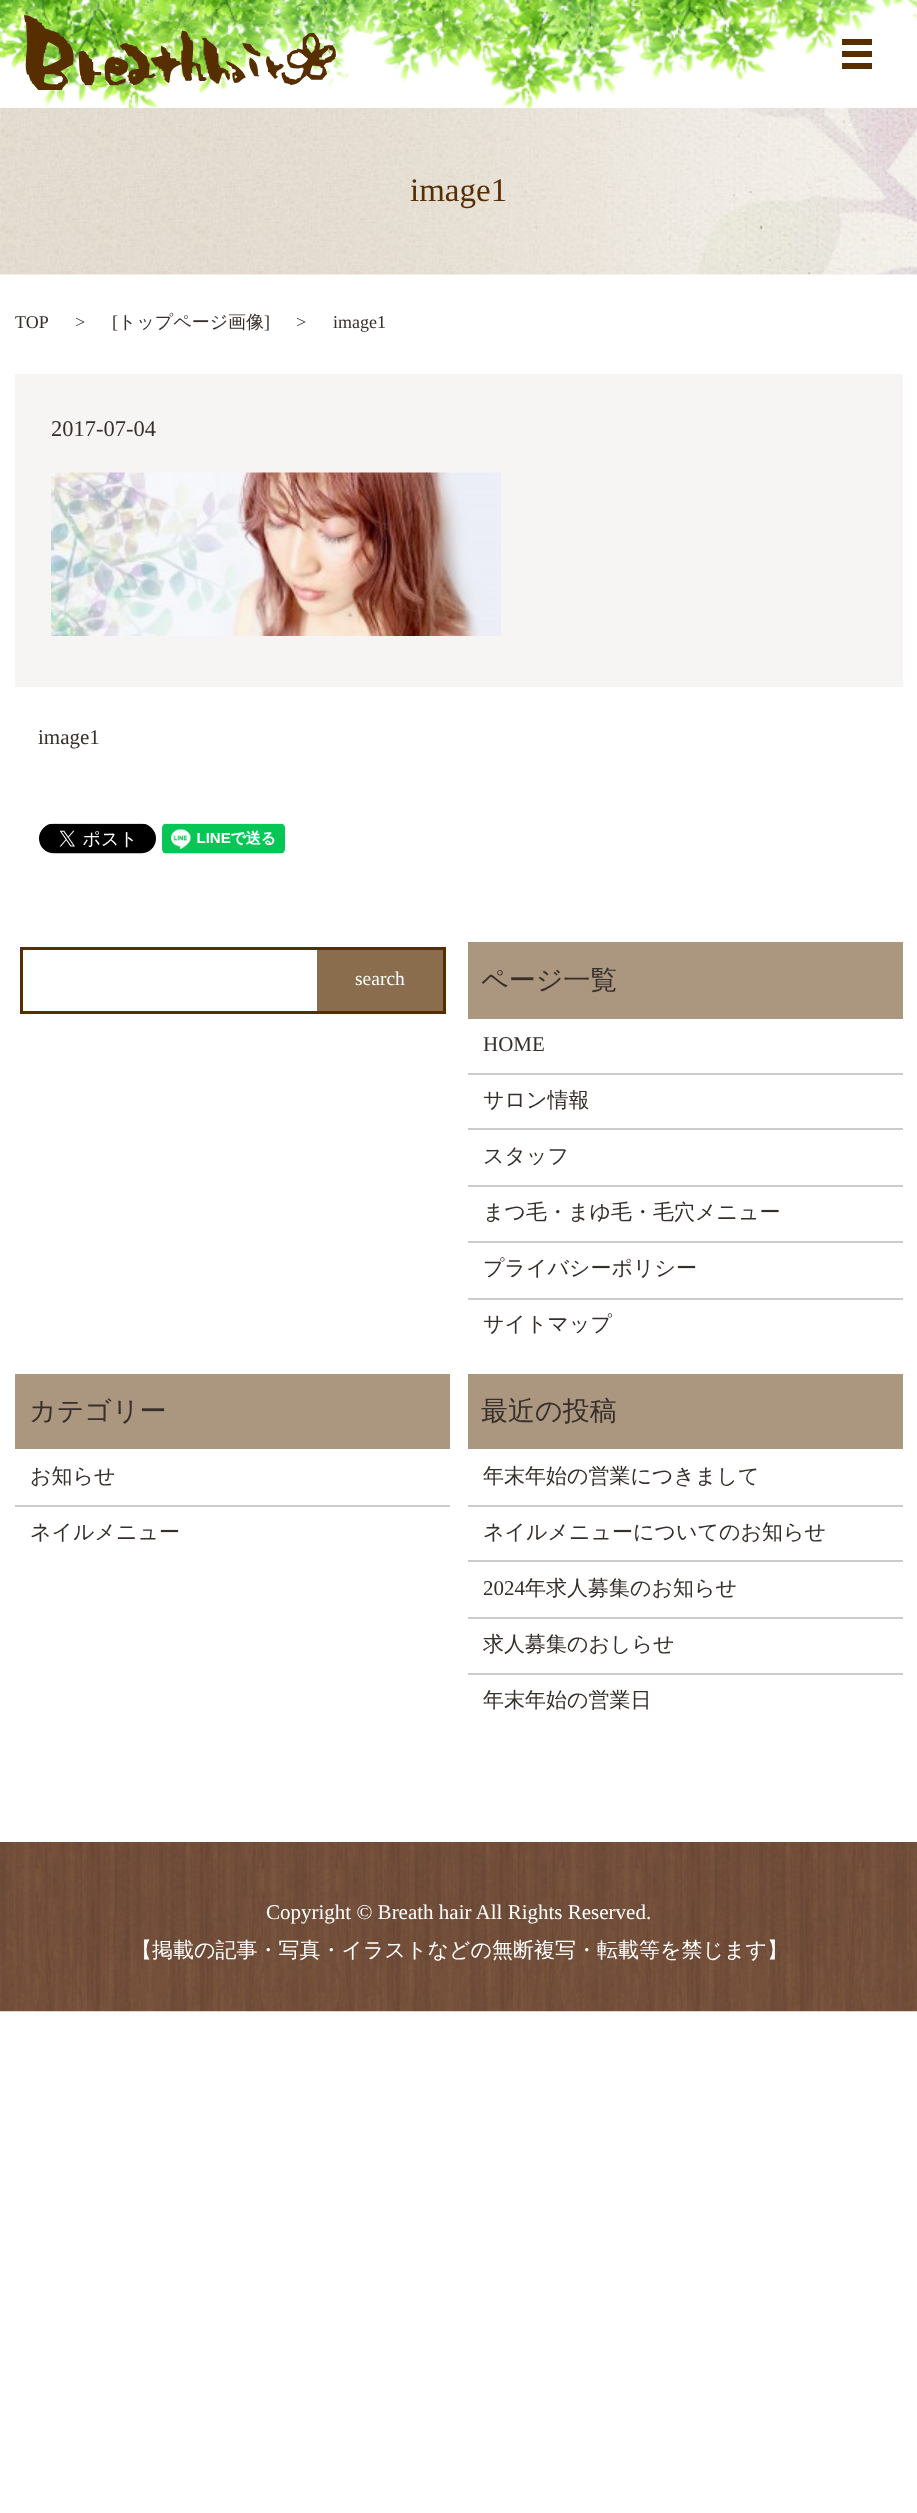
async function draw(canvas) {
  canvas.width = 917
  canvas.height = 2513
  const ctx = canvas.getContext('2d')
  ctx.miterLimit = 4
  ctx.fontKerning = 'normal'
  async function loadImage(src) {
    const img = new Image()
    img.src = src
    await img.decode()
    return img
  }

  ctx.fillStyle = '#fff'
  ctx.fillRect(0, 0, 917, 2513)
  ctx.drawImage(await loadImage('image0.png'), 0, 0, 917, 108)
  ctx.drawImage(await loadImage('image1.png'), 24, 15, 312, 75)
  ctx.fillStyle = '#562e00'
  ctx.fillRect(842, 39, 30, 6)
  ctx.fillRect(842, 51, 30, 6)
  ctx.fillRect(842, 63, 30, 6)
  ctx.drawImage(await loadImage('image2.png'), 0, 108, 917, 167)
  ctx.font = '33px Liberation Serif'
  ctx.fillText('image1', 410, 201)
  ctx.font = '18px Liberation Serif'
  ctx.fillStyle = '#362e2b'
  ctx.fillText('TOP', 15, 328)
  ctx.fillText('>', 75, 328)
  ctx.fillText('[', 112, 328)
  ctx.font = '500 18px WenQuanYi Zen Hei'
  ctx.fillText('トップページ画像', 118, 328)
  ctx.font = '18px Liberation Serif'
  ctx.fillText(']', 264, 328)
  ctx.fillText('>', 296, 328)
  ctx.fillText('image1', 333, 328)
  ctx.fillStyle = '#f7f5f3'
  ctx.fillRect(15, 374, 888, 313)
  ctx.font = '22.5px Liberation Serif'
  ctx.fillStyle = '#362e2b'
  ctx.fillText('2017-07-04', 51, 436)
  ctx.drawImage(await loadImage('image3.png'), 51, 472, 450, 164)
  ctx.font = '21px Liberation Serif'
  ctx.fillText('image1', 38, 744)
  ctx.drawImage(await loadImage('image4.png'), 39, 823, 117, 31)
  ctx.drawImage(await loadImage('image5.png'), 162, 823, 123, 31)
  ctx.strokeStyle = '#562e00'
  ctx.lineWidth = 3
  ctx.strokeRect(21.5, 948.5, 423, 64)
  ctx.fillStyle = '#896d4d'
  ctx.fillRect(317, 950, 126, 61)
  ctx.font = '19.5px Liberation Serif'
  ctx.fillStyle = '#fff'
  ctx.fillText('search', 355, 985)
  ctx.fillStyle = '#ab9780'
  ctx.fillRect(468, 942, 435, 77)
  ctx.font = '500 27px WenQuanYi Zen Hei'
  ctx.fillStyle = '#362e2b'
  ctx.fillText('ページ一覧', 481, 989)
  ctx.fillStyle = '#ccc'
  ctx.fillRect(468, 1073, 435, 2)
  ctx.font = '21px Liberation Serif'
  ctx.fillStyle = '#362e2b'
  ctx.fillText('HOME', 483, 1051)
  ctx.fillStyle = '#ccc'
  ctx.fillRect(468, 1128, 435, 2)
  ctx.font = '500 21px WenQuanYi Zen Hei'
  ctx.fillStyle = '#362e2b'
  ctx.fillText('サロン情報', 483, 1107)
  ctx.fillStyle = '#ccc'
  ctx.fillRect(468, 1185, 435, 2)
  ctx.fillStyle = '#362e2b'
  ctx.fillText('スタッフ', 483, 1163)
  ctx.fillStyle = '#ccc'
  ctx.fillRect(468, 1241, 435, 2)
  ctx.fillStyle = '#362e2b'
  ctx.fillText('まつ毛・まゆ毛・毛穴メニュー', 483, 1219)
  ctx.fillStyle = '#ccc'
  ctx.fillRect(468, 1298, 435, 2)
  ctx.fillStyle = '#362e2b'
  ctx.fillText('プライバシーポリシー', 483, 1275)
  ctx.fillText('サイトマップ', 483, 1331)
  ctx.fillStyle = '#ab9780'
  ctx.fillRect(15, 1374, 435, 75)
  ctx.font = '500 27px WenQuanYi Zen Hei'
  ctx.fillStyle = '#362e2b'
  ctx.fillText('カテゴリー', 29, 1420)
  ctx.fillStyle = '#ccc'
  ctx.fillRect(15, 1505, 435, 2)
  ctx.font = '500 21px WenQuanYi Zen Hei'
  ctx.fillStyle = '#362e2b'
  ctx.fillText('お知らせ', 30, 1483)
  ctx.fillText('ネイルメニュー', 30, 1539)
  ctx.fillStyle = '#ab9780'
  ctx.fillRect(468, 1374, 435, 75)
  ctx.font = '500 27px WenQuanYi Zen Hei'
  ctx.fillStyle = '#362e2b'
  ctx.fillText('最近の投稿', 481, 1420)
  ctx.fillStyle = '#ccc'
  ctx.fillRect(468, 1505, 435, 2)
  ctx.font = '500 21px WenQuanYi Zen Hei'
  ctx.fillStyle = '#362e2b'
  ctx.fillText('年末年始の営業につきまして', 483, 1483)
  ctx.fillStyle = '#ccc'
  ctx.fillRect(468, 1560, 435, 2)
  ctx.fillStyle = '#362e2b'
  ctx.fillText('ネイルメニューについてのお知らせ', 483, 1539)
  ctx.fillStyle = '#ccc'
  ctx.fillRect(468, 1617, 435, 2)
  ctx.font = '21px Liberation Serif'
  ctx.fillStyle = '#362e2b'
  ctx.fillText('2024', 483, 1595)
  ctx.font = '500 21px WenQuanYi Zen Hei'
  ctx.fillText('年求人募集のお知らせ', 525, 1595)
  ctx.fillStyle = '#ccc'
  ctx.fillRect(468, 1673, 435, 2)
  ctx.fillStyle = '#362e2b'
  ctx.fillText('求人募集のおしらせ', 483, 1651)
  ctx.fillText('年末年始の営業日', 483, 1707)
  ctx.drawImage(await loadImage('image6.png'), 0, 1842, 917, 170)
  ctx.font = '21px Liberation Serif'
  ctx.fillStyle = '#fff'
  ctx.fillText('Copyright © Breath hair All Rights Reserved.', 266, 1919)
  ctx.font = '500 21px WenQuanYi Zen Hei'
  ctx.fillText('【掲載の記事・写真・イラストなどの無断複写・転載等を禁じます】', 131, 1957)
}

draw(document.querySelector('canvas'))
